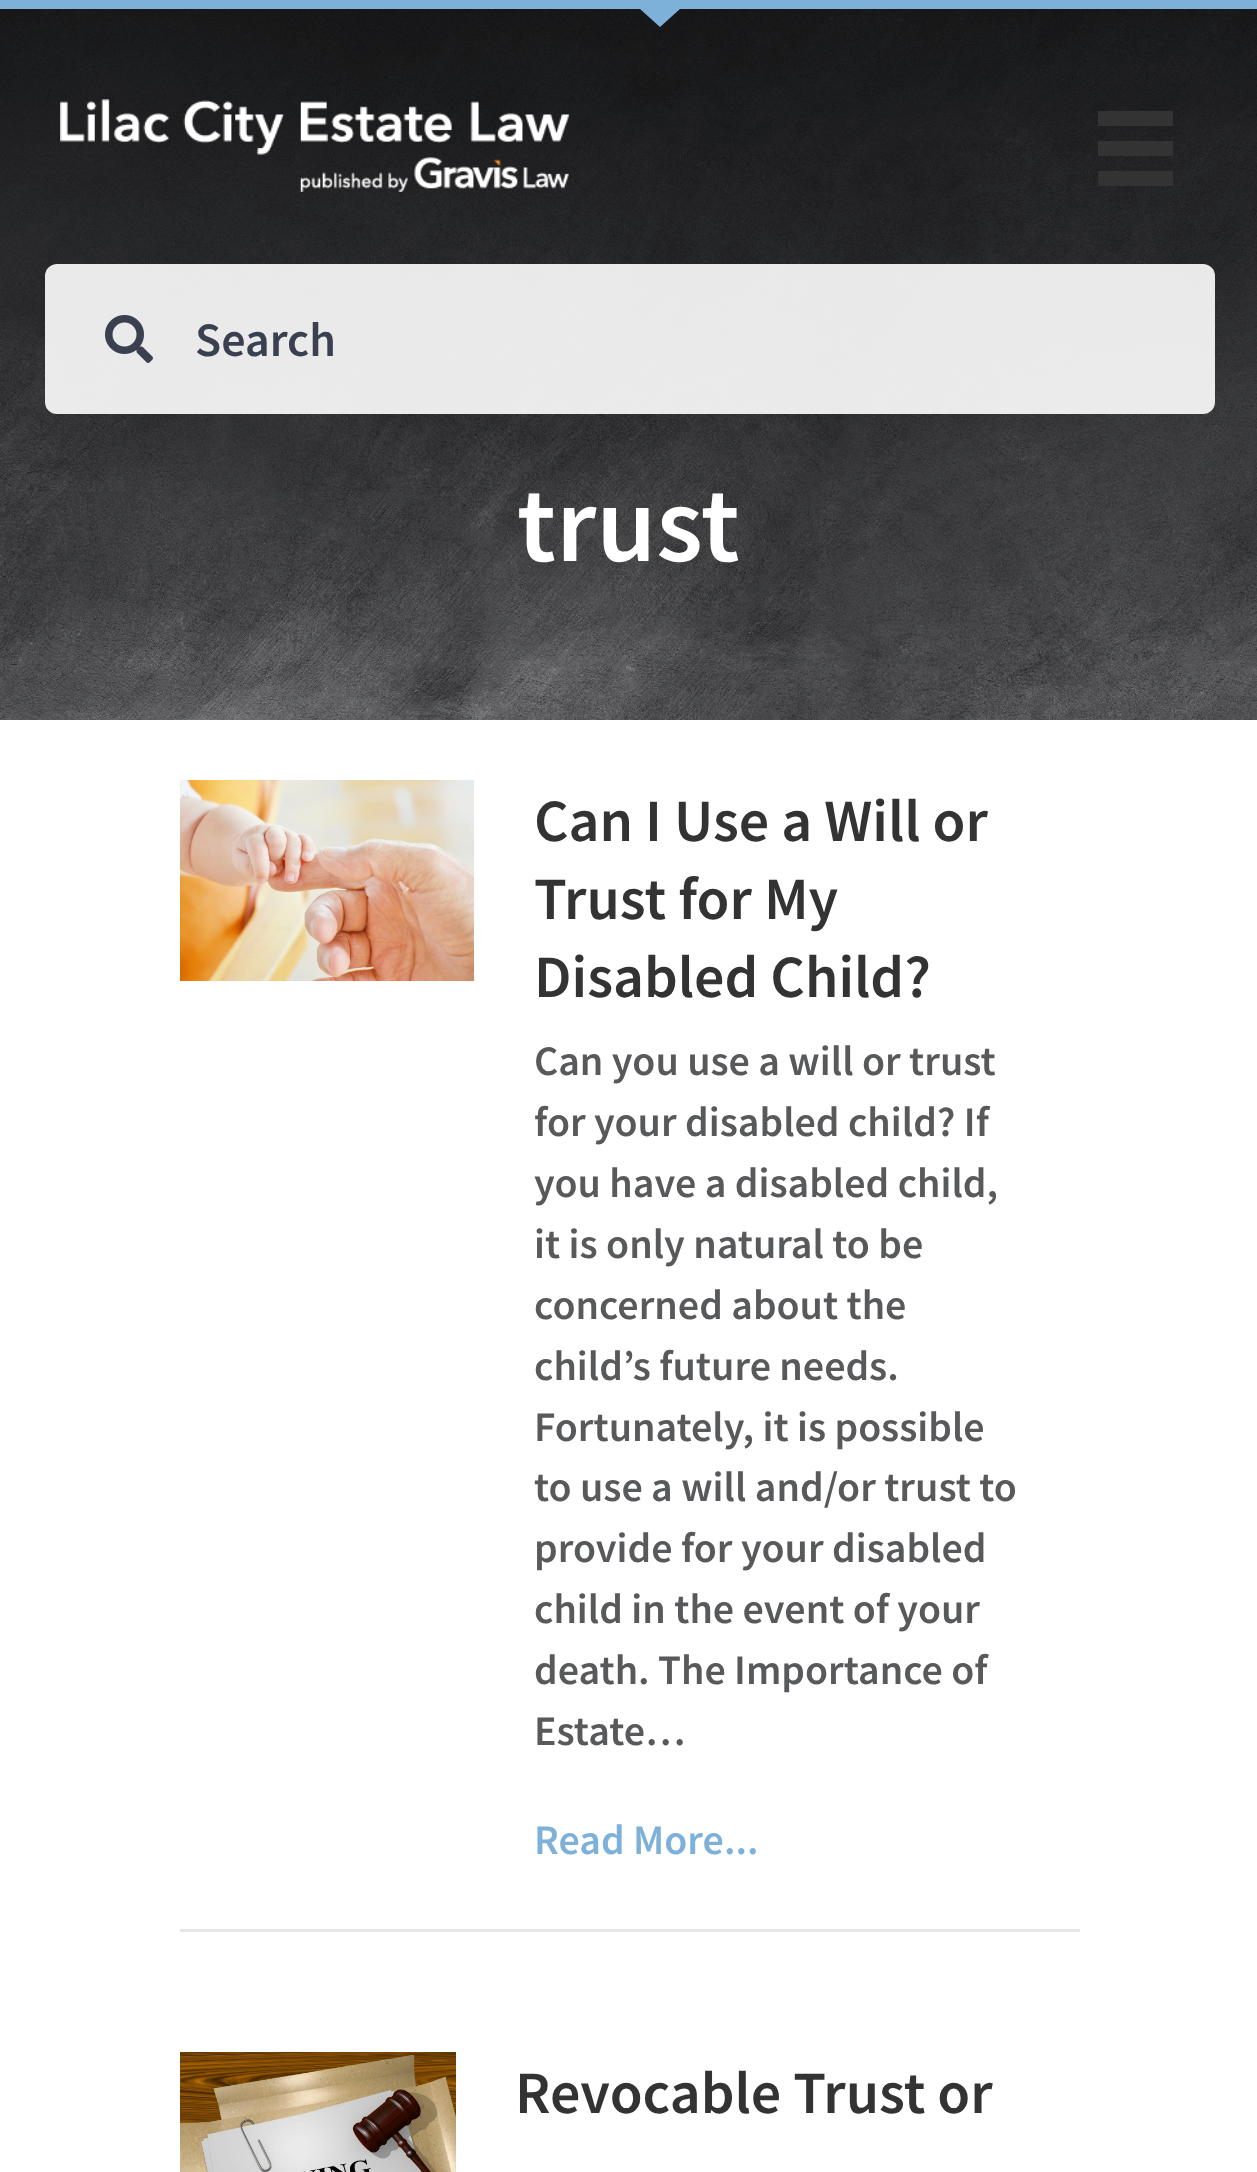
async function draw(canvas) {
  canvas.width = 1257
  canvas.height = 2172
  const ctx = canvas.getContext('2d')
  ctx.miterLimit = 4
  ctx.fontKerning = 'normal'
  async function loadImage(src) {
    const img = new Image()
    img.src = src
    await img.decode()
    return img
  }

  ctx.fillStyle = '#fff'
  ctx.fillRect(0, 0, 1257, 2172)
  ctx.fillStyle = '#7db1d9'
  ctx.fillRect(0, 0, 1257, 9)
  ctx.drawImage(await loadImage('image2.png'), 0, 9, 1257, 711)
  ctx.beginPath()
  ctx.moveTo(630, 0)
  ctx.lineTo(690, 0)
  ctx.lineTo(660, 27)
  ctx.closePath()
  ctx.fill()
  ctx.drawImage(await loadImage('image0.png'), 60, 99, 510, 93)
  ctx.fillStyle = '#333'
  ctx.fillRect(1098, 111, 75, 15)
  ctx.fillRect(1098, 141, 75, 15)
  ctx.fillRect(1098, 171, 75, 15)
  ctx.fillStyle = '#ffffffe6'
  ctx.beginPath()
  ctx.roundRect(45, 264, 1170, 150, 12)
  ctx.fill()
  ctx.drawImage(await loadImage('image1.png'), 105, 315, 48, 48)
  ctx.font = '600 48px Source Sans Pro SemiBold'
  ctx.fillStyle = '#3b4051'
  ctx.fillText('Search', 195, 356)
  ctx.font = '600 108px Source Sans Pro SemiBold'
  ctx.fillStyle = '#fff'
  ctx.fillText('trust', 517, 561)
  ctx.fillStyle = '#e6e6e6'
  ctx.fillRect(180, 1929, 900, 3)
  ctx.drawImage(await loadImage('image3.png'), 180, 780, 294, 201)
  ctx.font = '600 60px Source Sans Pro SemiBold'
  ctx.fillStyle = '#333'
  ctx.fillText('Can I Use a Will or', 534, 841)
  ctx.fillText('Trust for My', 534, 919)
  ctx.fillText('Disabled Child?', 534, 997)
  ctx.font = '600 42px Source Sans Pro SemiBold'
  ctx.fillStyle = '#58595b'
  ctx.fillText('Can you use a will or trust', 534, 1075)
  ctx.fillText('for your disabled child? If', 534, 1136)
  ctx.fillText('you have a disabled child,', 534, 1197)
  ctx.fillText('it is only natural to be', 534, 1258)
  ctx.fillText('concerned about the', 534, 1319)
  ctx.fillText('child’s future needs.', 534, 1380)
  ctx.fillText('Fortunately, it is possible', 534, 1441)
  ctx.fillText('to use a will and/or trust to', 534, 1501)
  ctx.fillText('provide for your disabled', 534, 1562)
  ctx.fillText('child in the event of your', 534, 1623)
  ctx.fillText('death. The Importance of', 534, 1684)
  ctx.fillText('Estate…', 534, 1745)
  ctx.fillStyle = '#7db1d9'
  ctx.fillText('Read More...', 534, 1854)
  ctx.drawImage(await loadImage('image4.png'), 180, 2052, 276, 120)
  ctx.font = '600 60px Source Sans Pro SemiBold'
  ctx.fillStyle = '#333'
  ctx.fillText('Revocable Trust or', 515, 2113)
}

draw(document.querySelector('canvas'))
